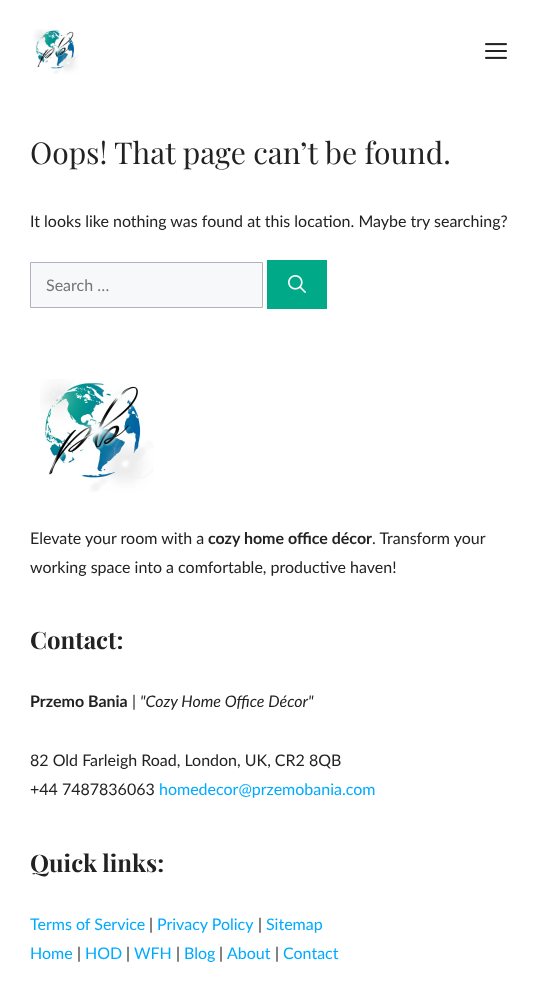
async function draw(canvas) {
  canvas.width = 557
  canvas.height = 990
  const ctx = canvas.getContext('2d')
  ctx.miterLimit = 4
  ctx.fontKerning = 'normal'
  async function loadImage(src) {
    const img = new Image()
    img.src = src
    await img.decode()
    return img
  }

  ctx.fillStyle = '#fff'
  ctx.fillRect(0, 0, 557, 990)
  ctx.drawImage(await loadImage('image0.png'), 33, 29, 46, 45)
  ctx.drawImage(await loadImage('image1.png'), 485, 43, 22, 16)
  ctx.font = '30px Playfair Display'
  ctx.fillStyle = '#222'
  ctx.fillText('Oops! That page can’t be found.', 30, 164)
  ctx.font = '16px Lato'
  ctx.fillText('It looks like nothing was found at this location. Maybe try searching?', 30, 227)
  ctx.fillStyle = '#f7f8f9'
  ctx.beginPath()
  ctx.rect(30.5, 262.5, 232, 45)
  ctx.fill()
  ctx.strokeStyle = '#b2b2be'
  ctx.stroke()
  ctx.fillStyle = '#757575'
  ctx.fillText('Search …', 46, 291)
  ctx.fillStyle = '#0a8'
  ctx.fillRect(267, 260, 60, 49)
  ctx.drawImage(await loadImage('image2.png'), 288, 275, 18, 18)
  ctx.drawImage(await loadImage('image3.png'), 40, 379, 114, 113)
  ctx.fillStyle = '#222'
  ctx.fillText('Elevate your room with a', 30, 544)
  ctx.font = 'bold 16px Lato'
  ctx.fillText('cozy home office décor', 208, 544)
  ctx.font = '16px Lato'
  ctx.fillText('. Transform your', 372, 544)
  ctx.fillText('working space into a comfortable, productive haven!', 30, 573)
  ctx.font = 'bold 24px Playfair Display'
  ctx.fillText('Contact:', 30, 649)
  ctx.font = 'bold 16px Lato'
  ctx.fillText('Przemo Bania', 30, 707)
  ctx.font = '16px Lato'
  ctx.fillText('|', 132, 707)
  ctx.font = 'italic 16px Lato'
  ctx.fillText('"Cozy Home Office Décor"', 140, 707)
  ctx.font = '16px Lato'
  ctx.fillText('82 Old Farleigh Road, London, UK, CR2 8QB', 30, 766)
  ctx.fillText('+44 7487836063', 30, 795)
  ctx.fillStyle = '#0af'
  ctx.fillText('homedecor@przemobania.com', 159, 795)
  ctx.font = 'bold 24px Playfair Display'
  ctx.fillStyle = '#222'
  ctx.fillText('Quick links:', 30, 872)
  ctx.font = '16px Lato'
  ctx.fillStyle = '#0af'
  ctx.fillText('Terms of Service', 30, 930)
  ctx.fillStyle = '#222'
  ctx.fillText('|', 149, 930)
  ctx.fillStyle = '#0af'
  ctx.fillText('Privacy Policy', 157, 930)
  ctx.fillStyle = '#222'
  ctx.fillText('|', 258, 930)
  ctx.fillStyle = '#0af'
  ctx.fillText('Sitemap', 266, 930)
  ctx.fillText('Home', 30, 959)
  ctx.fillStyle = '#222'
  ctx.fillText('|', 77, 959)
  ctx.fillStyle = '#0af'
  ctx.fillText('HOD', 85, 959)
  ctx.fillStyle = '#222'
  ctx.fillText('|', 126, 959)
  ctx.fillStyle = '#0af'
  ctx.fillText('WFH', 134, 959)
  ctx.fillStyle = '#222'
  ctx.fillText('|', 176, 959)
  ctx.fillStyle = '#0af'
  ctx.fillText('Blog', 184, 959)
  ctx.fillStyle = '#222'
  ctx.fillText('|', 219, 959)
  ctx.fillStyle = '#0af'
  ctx.fillText('About', 227, 959)
  ctx.fillStyle = '#222'
  ctx.fillText('|', 275, 959)
  ctx.fillStyle = '#0af'
  ctx.fillText('Contact', 283, 959)
}

draw(document.querySelector('canvas'))
